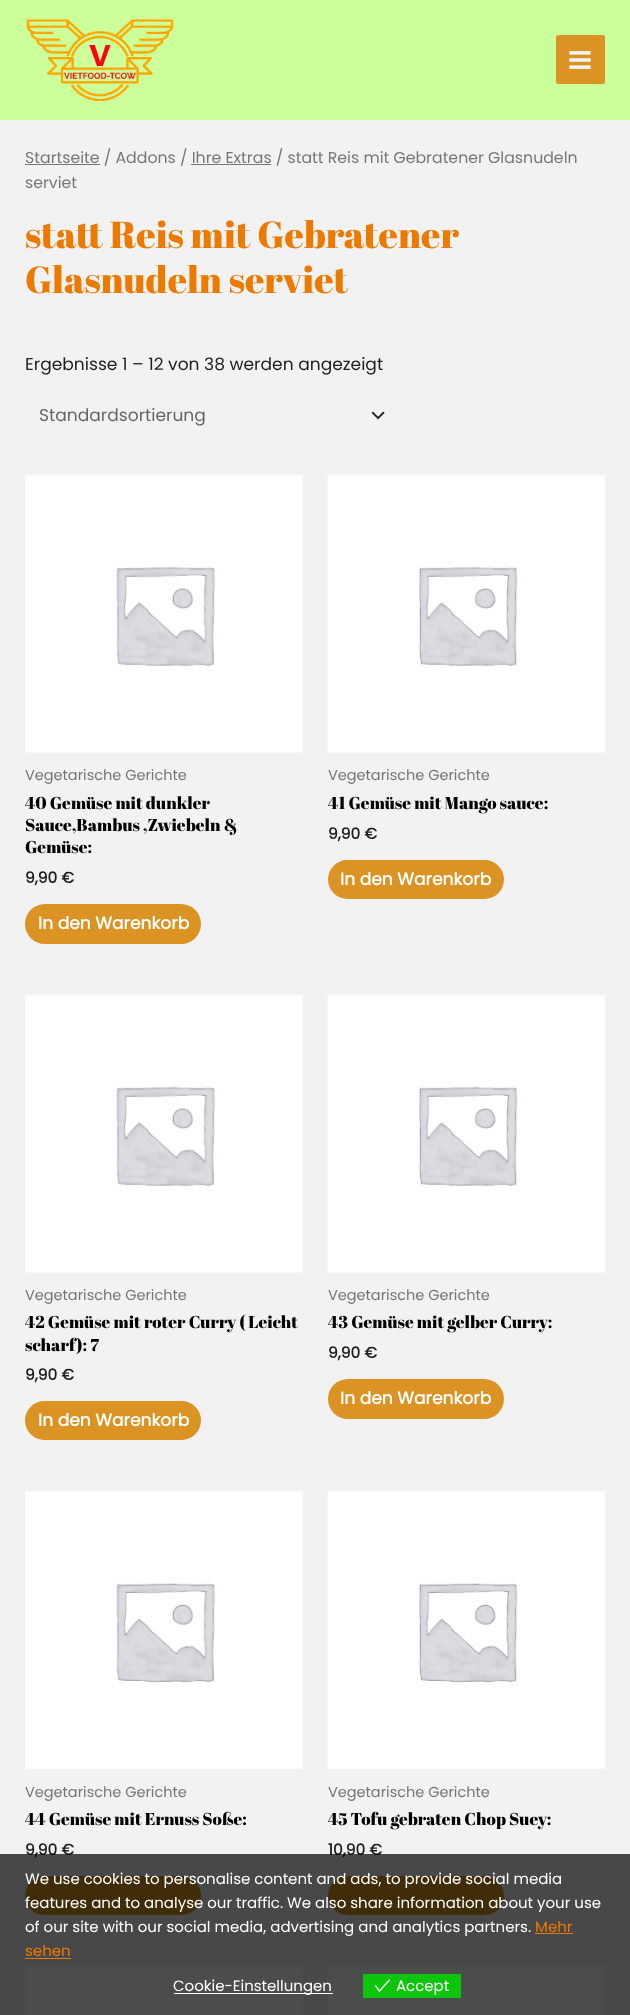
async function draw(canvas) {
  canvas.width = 630
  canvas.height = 2015
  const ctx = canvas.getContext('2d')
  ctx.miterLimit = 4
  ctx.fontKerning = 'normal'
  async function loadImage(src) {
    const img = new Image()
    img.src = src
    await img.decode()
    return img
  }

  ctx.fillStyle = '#f2f2f2'
  ctx.fillRect(0, 0, 630, 2015)
  ctx.fillStyle = '#cf9'
  ctx.fillRect(0, 0, 630, 120)
  ctx.drawImage(await loadImage('image0.png'), 26, 19, 148, 82)
  ctx.fillStyle = '#db9423'
  ctx.beginPath()
  ctx.roundRect(556, 35, 49, 49, 2.5)
  ctx.fill()
  ctx.drawImage(await loadImage('image1.png'), 569, 51, 22, 18)
  ctx.fillStyle = '#777'
  ctx.fillRect(25, 164, 75, 1)
  ctx.font = '15.75px Poppins'
  ctx.fillText('Startseite / Addons / Ihre Extras / statt Reis mit Gebratener Glasnudeln', 25, 163)
  ctx.fillRect(191, 164, 80, 1)
  ctx.fillText('serviet', 25, 188)
  ctx.font = '37.5px Abril Fatface'
  ctx.fillStyle = '#ed7a00'
  ctx.fillText('statt Reis mit Gebratener', 25, 248)
  ctx.fillText('Glasnudeln serviet', 25, 293)
  ctx.font = '17.1px Poppins'
  ctx.fillStyle = '#1d1d23'
  ctx.fillText('Ergebnisse 1 – 12 von 38 werden angezeigt', 25, 370)
  ctx.drawImage(await loadImage('image2.png'), 371, 411, 14, 9)
  ctx.fillStyle = '#666'
  ctx.fillText('Standardsortierung', 39, 421)
  ctx.drawImage(await loadImage('image3.png'), 25, 475, 278, 278)
  ctx.font = '14.5px Poppins'
  ctx.fillStyle = '#777'
  ctx.fillText('Vegetarische Gerichte', 25, 780)
  ctx.font = '17.1px Abril Fatface'
  ctx.fillStyle = '#000'
  ctx.fillText('40 Gemüse mit dunkler', 25, 809)
  ctx.fillText('Sauce,Bambus ,Zwiebeln &', 25, 831)
  ctx.fillText('Gemüse:', 25, 853)
  ctx.font = 'bold 15.5px Poppins'
  ctx.fillStyle = '#1d1d23'
  ctx.fillText('9,90 €', 25, 883)
  ctx.fillStyle = '#db9423'
  ctx.beginPath()
  ctx.roundRect(25, 904, 176, 40, 20)
  ctx.fill()
  ctx.font = 'bold 17.1px Poppins'
  ctx.fillStyle = '#fff'
  ctx.fillText('In den Warenkorb', 38, 929)
  ctx.drawImage(await loadImage('image4.png'), 327, 475, 278, 278)
  ctx.font = '14.5px Poppins'
  ctx.fillStyle = '#777'
  ctx.fillText('Vegetarische Gerichte', 328, 780)
  ctx.font = '17.1px Abril Fatface'
  ctx.fillStyle = '#000'
  ctx.fillText('41 Gemüse mit Mango sauce:', 328, 809)
  ctx.font = 'bold 15.5px Poppins'
  ctx.fillStyle = '#1d1d23'
  ctx.fillText('9,90 €', 328, 839)
  ctx.fillStyle = '#db9423'
  ctx.beginPath()
  ctx.roundRect(328, 860, 176, 39, 19.5)
  ctx.fill()
  ctx.font = 'bold 17.1px Poppins'
  ctx.fillStyle = '#fff'
  ctx.fillText('In den Warenkorb', 340, 885)
  ctx.drawImage(await loadImage('image5.png'), 25, 995, 278, 278)
  ctx.font = '14.5px Poppins'
  ctx.fillStyle = '#777'
  ctx.fillText('Vegetarische Gerichte', 25, 1300)
  ctx.font = '17.1px Abril Fatface'
  ctx.fillStyle = '#000'
  ctx.fillText('42 Gemüse mit roter Curry ( Leicht', 25, 1328)
  ctx.fillText('scharf): 7', 25, 1351)
  ctx.font = 'bold 15.5px Poppins'
  ctx.fillStyle = '#1d1d23'
  ctx.fillText('9,90 €', 25, 1380)
  ctx.fillStyle = '#db9423'
  ctx.beginPath()
  ctx.roundRect(25, 1401, 176, 39, 19.5)
  ctx.fill()
  ctx.font = 'bold 17.1px Poppins'
  ctx.fillStyle = '#fff'
  ctx.fillText('In den Warenkorb', 38, 1426)
  ctx.drawImage(await loadImage('image6.png'), 327, 995, 278, 278)
  ctx.font = '14.5px Poppins'
  ctx.fillStyle = '#777'
  ctx.fillText('Vegetarische Gerichte', 328, 1300)
  ctx.font = '17.1px Abril Fatface'
  ctx.fillStyle = '#000'
  ctx.fillText('43 Gemüse mit gelber Curry:', 328, 1328)
  ctx.font = 'bold 15.5px Poppins'
  ctx.fillStyle = '#1d1d23'
  ctx.fillText('9,90 €', 328, 1358)
  ctx.fillStyle = '#db9423'
  ctx.beginPath()
  ctx.roundRect(328, 1379, 176, 40, 20)
  ctx.fill()
  ctx.font = 'bold 17.1px Poppins'
  ctx.fillStyle = '#fff'
  ctx.fillText('In den Warenkorb', 340, 1404)
  ctx.drawImage(await loadImage('image7.png'), 25, 1491, 278, 278)
  ctx.font = '14.5px Poppins'
  ctx.fillStyle = '#777'
  ctx.fillText('Vegetarische Gerichte', 25, 1797)
  ctx.font = '17.1px Abril Fatface'
  ctx.fillStyle = '#000'
  ctx.fillText('44 Gemüse mit Ernuss Soße:', 25, 1825)
  ctx.font = 'bold 15.5px Poppins'
  ctx.fillStyle = '#1d1d23'
  ctx.fillText('9,90 €', 25, 1855)
  ctx.fillStyle = '#db9423'
  ctx.beginPath()
  ctx.roundRect(25, 1876, 176, 39, 19.5)
  ctx.fill()
  ctx.drawImage(await loadImage('image8.png'), 327, 1491, 278, 278)
  ctx.font = '14.5px Poppins'
  ctx.fillStyle = '#777'
  ctx.fillText('Vegetarische Gerichte', 328, 1797)
  ctx.font = '17.1px Abril Fatface'
  ctx.fillStyle = '#000'
  ctx.fillText('45 Tofu gebraten Chop Suey:', 328, 1825)
  ctx.font = 'bold 15.5px Poppins'
  ctx.fillStyle = '#1d1d23'
  ctx.fillText('10,90 €', 328, 1855)
  ctx.fillStyle = '#db9423'
  ctx.beginPath()
  ctx.roundRect(328, 1876, 176, 39, 19.5)
  ctx.fill()
  ctx.fillStyle = '#fff'
  ctx.fillRect(25, 1966, 278, 49)
  ctx.fillRect(327, 1966, 278, 49)
  ctx.fillStyle = '#000000b3'
  ctx.fillRect(0, 1854, 630, 161)
  ctx.font = '15px Poppins'
  ctx.fillStyle = '#fff'
  ctx.fillText('We use cookies to personalise content and ads, to provide social media', 25, 1884)
  ctx.fillText('features and to analyse our traffic. We also share information about your use', 25, 1908)
  ctx.fillText('of our site with our social media, advertising and analytics partners.', 25, 1932)
  ctx.fillStyle = '#ed7a00'
  ctx.fillText('Mehr', 535, 1932)
  ctx.fillRect(535, 1933, 38, 1)
  ctx.fillText('sehen', 25, 1956)
  ctx.fillRect(25, 1958, 46, 1)
  ctx.fillStyle = '#fff'
  ctx.fillRect(174, 1993, 159, 1)
  ctx.fillText('Cookie-Einstellungen', 173, 1991)
  ctx.fillStyle = '#0ec50e'
  ctx.fillRect(363, 1974, 98, 24)
  ctx.drawImage(await loadImage('image9.png'), 375, 1979, 15, 13)
  ctx.fillStyle = '#fff'
  ctx.fillText('Accept', 396, 1991)
}

draw(document.querySelector('canvas'))
